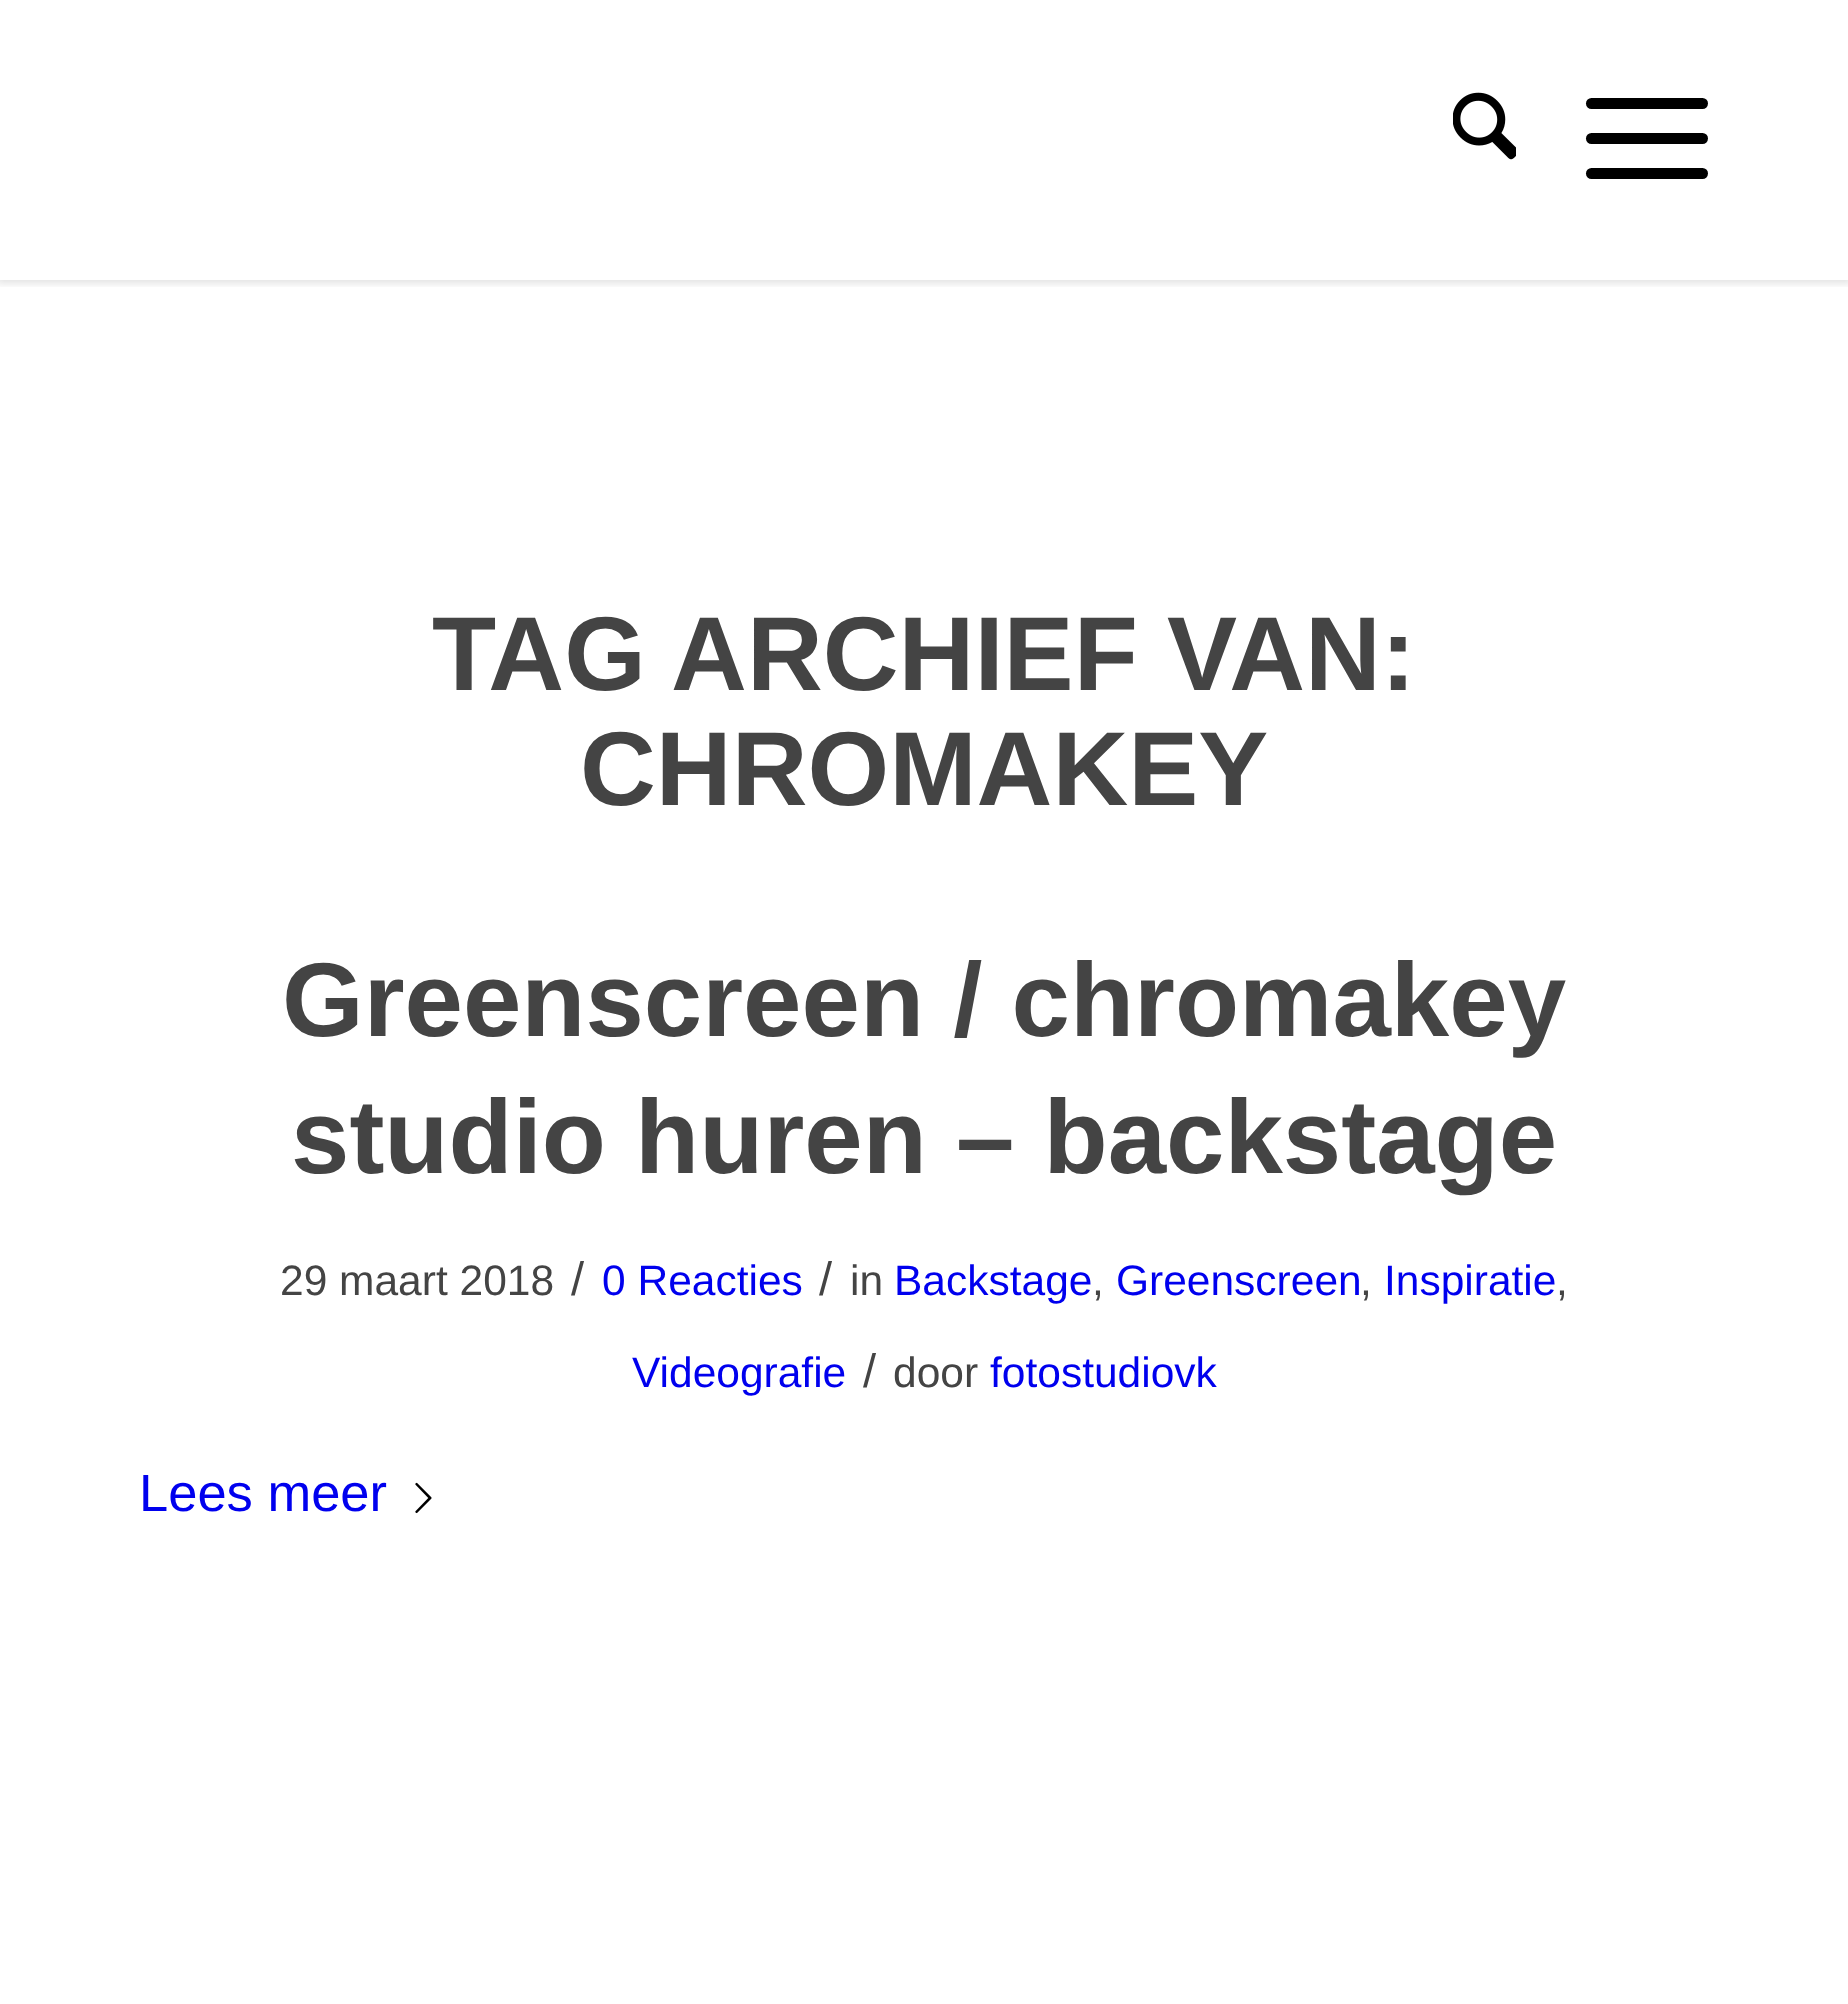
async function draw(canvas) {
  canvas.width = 1848
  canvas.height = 2004
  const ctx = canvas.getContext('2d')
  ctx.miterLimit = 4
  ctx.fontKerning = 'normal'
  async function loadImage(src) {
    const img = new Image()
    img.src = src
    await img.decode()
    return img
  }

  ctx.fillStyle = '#fff'
  ctx.fillRect(0, 0, 1848, 2004)
  ctx.save()
  ctx.beginPath()
  ctx.rect(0, 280, 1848, 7)
  ctx.clip()
  ctx.fillStyle = '#0000001a'
  ctx.filter = 'blur(3.5px)'
  ctx.beginPath()
  ctx.rect(-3, -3, 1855, 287)
  ctx.fill()
  ctx.filter = 'none'
  ctx.restore()
  ctx.drawImage(await loadImage('image0.png'), 1453, 92, 63, 68)
  ctx.fillStyle = '#000'
  ctx.beginPath()
  ctx.roundRect(1586, 133, 122, 11, 5.5)
  ctx.fill()
  ctx.beginPath()
  ctx.roundRect(1586, 98, 122, 11, 5.5)
  ctx.fill()
  ctx.beginPath()
  ctx.roundRect(1586, 168, 122, 11, 5.5)
  ctx.fill()
  ctx.font = 'bold 105px Liberation Sans'
  ctx.fillStyle = '#444'
  ctx.fillText('TAG ARCHIEF VAN:', 432, 690)
  ctx.fillText('CHROMAKEY', 580, 805)
  ctx.fillText('Greenscreen / chromakey', 282, 1036)
  ctx.fillText('studio huren – backstage', 291, 1173)
  ctx.font = '42.5px Liberation Sans'
  ctx.fillText('29 maart 2018', 280, 1295)
  ctx.font = '47px Liberation Sans'
  ctx.fillText('/', 571, 1295)
  ctx.font = '42.5px Liberation Sans'
  ctx.fillStyle = '#00e'
  ctx.fillText('0 Reacties', 602, 1295)
  ctx.font = '47px Liberation Sans'
  ctx.fillStyle = '#444'
  ctx.fillText('/', 819, 1295)
  ctx.font = '42.5px Liberation Sans'
  ctx.fillText('in', 850, 1295)
  ctx.fillStyle = '#00e'
  ctx.fillText('Backstage', 894, 1295)
  ctx.fillStyle = '#444'
  ctx.fillText(',', 1092, 1295)
  ctx.fillStyle = '#00e'
  ctx.fillText('Greenscreen', 1116, 1295)
  ctx.fillStyle = '#444'
  ctx.fillText(',', 1360, 1295)
  ctx.fillStyle = '#00e'
  ctx.fillText('Inspiratie', 1384, 1295)
  ctx.fillStyle = '#444'
  ctx.fillText(',', 1556, 1295)
  ctx.fillStyle = '#00e'
  ctx.fillText('Videografie', 632, 1387)
  ctx.font = '47px Liberation Sans'
  ctx.fillStyle = '#444'
  ctx.fillText('/', 863, 1387)
  ctx.font = '42.5px Liberation Sans'
  ctx.fillText('door', 893, 1387)
  ctx.fillStyle = '#00e'
  ctx.fillText('fotostudiovk', 990, 1387)
  ctx.font = '52.5px Liberation Sans'
  ctx.fillText('Lees meer', 139, 1511)
  ctx.drawImage(await loadImage('image1.png'), 415, 1482, 17, 32)
}

draw(document.querySelector('canvas'))
